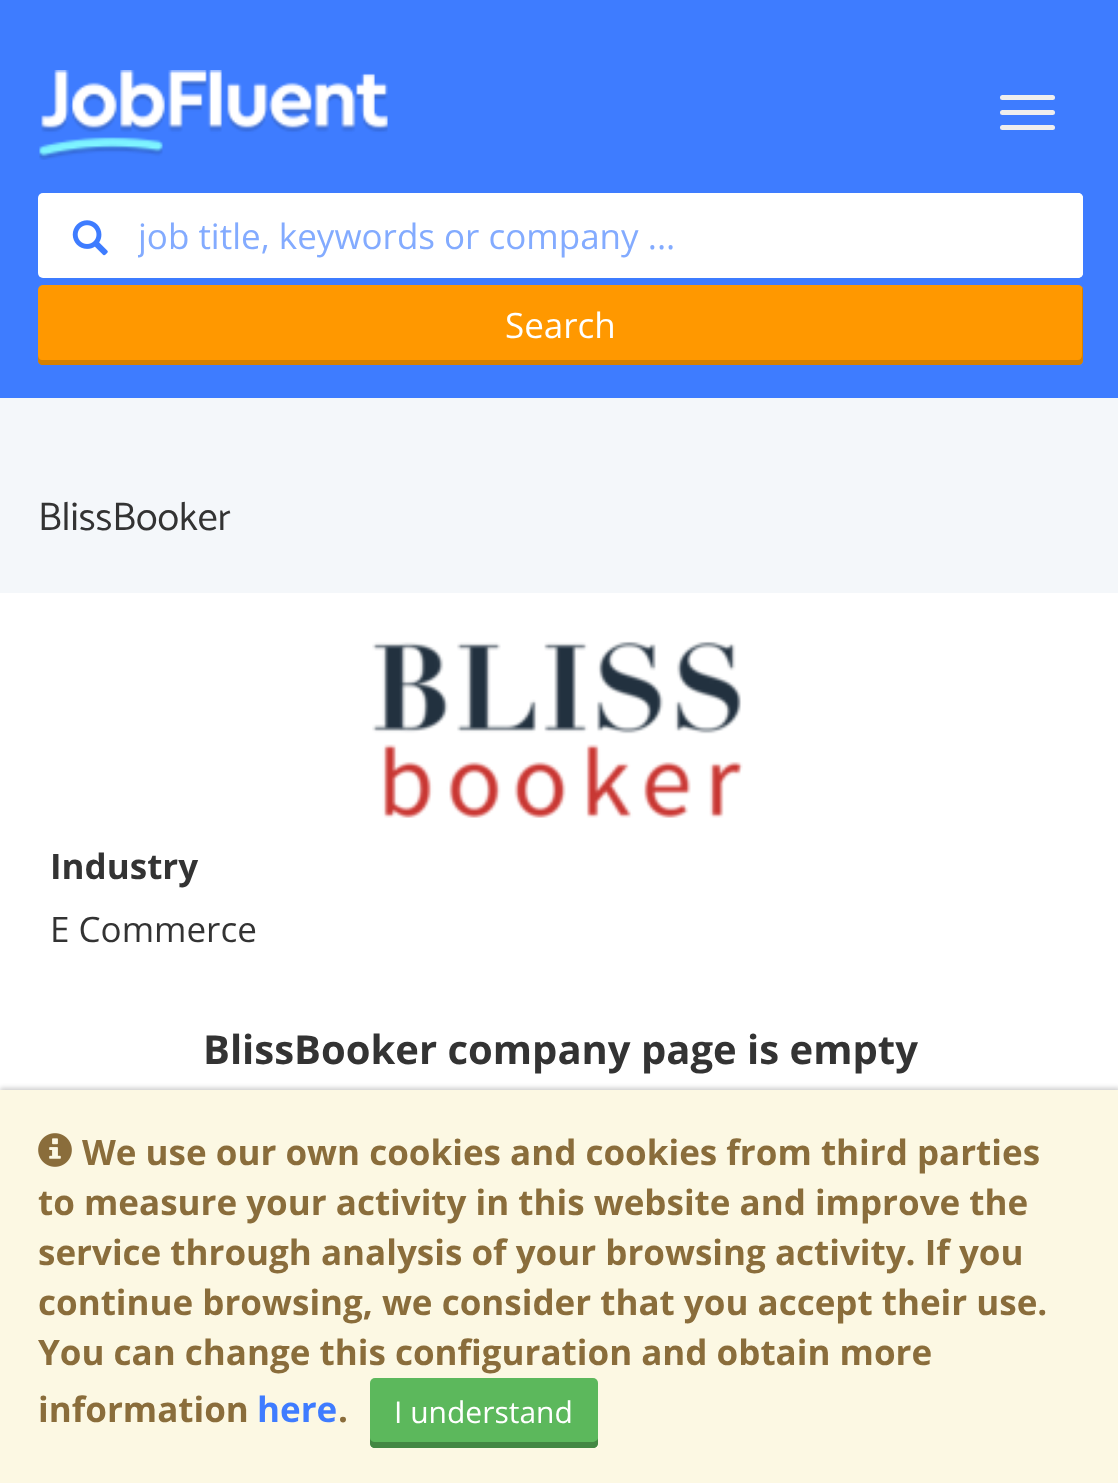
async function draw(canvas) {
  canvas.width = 1118
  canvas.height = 1483
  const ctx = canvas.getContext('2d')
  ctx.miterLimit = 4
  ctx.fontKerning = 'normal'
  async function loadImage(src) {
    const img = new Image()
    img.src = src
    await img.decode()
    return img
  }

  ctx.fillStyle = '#f4f7fa'
  ctx.fillRect(0, 0, 1118, 1483)
  ctx.fillStyle = '#3e7cff'
  ctx.fillRect(0, 0, 1118, 398)
  ctx.fillStyle = '#eee'
  ctx.beginPath()
  ctx.roundRect(1000, 95, 55, 5, 2.5)
  ctx.fill()
  ctx.beginPath()
  ctx.roundRect(1000, 110, 55, 5, 2.5)
  ctx.fill()
  ctx.beginPath()
  ctx.roundRect(1000, 125, 55, 5, 2.5)
  ctx.fill()
  ctx.drawImage(await loadImage('image0.png'), 39, 70, 349, 90)
  ctx.fillStyle = '#fff'
  ctx.beginPath()
  ctx.roundRect(38, 193, 1045, 85, 5)
  ctx.fill()
  ctx.drawImage(await loadImage('image1.png'), 72, 220, 36, 36)
  ctx.beginPath()
  ctx.roundRect(108, 193, 975, 85, 5)
  ctx.fill()
  ctx.save()
  ctx.beginPath()
  ctx.rect(138, 213, 915, 47)
  ctx.clip()
  ctx.font = '35px Open Sans'
  ctx.fillStyle = '#83abff'
  ctx.fillText('job title, keywords or company ...', 138, 249)
  ctx.restore()
  ctx.fillStyle = '#ff9800'
  ctx.beginPath()
  ctx.roundRect(38, 285, 1045, 80, 5)
  ctx.fill()
  ctx.fillStyle = '#d68000'
  ctx.beginPath()
  ctx.moveTo(38, 355)
  ctx.lineTo(38, 360)
  ctx.bezierCurveTo(38, 363, 40, 365, 43, 365)
  ctx.lineTo(1078, 365)
  ctx.bezierCurveTo(1081, 365, 1083, 363, 1083, 360)
  ctx.lineTo(1083, 290)
  ctx.bezierCurveTo(1083, 289, 1083, 288, 1082, 287)
  ctx.lineTo(1082, 355)
  ctx.bezierCurveTo(1082, 358, 1080, 360, 1078, 360)
  ctx.lineTo(42, 360)
  ctx.bezierCurveTo(40, 360, 38, 358, 38, 355)
  ctx.closePath()
  ctx.fill()
  ctx.font = '35px Open Sans'
  ctx.fillStyle = '#fff'
  ctx.fillText('Search', 505, 338)
  ctx.font = '40px Catamaran'
  ctx.fillStyle = '#333'
  ctx.fillText('BlissBooker', 38, 530)
  ctx.fillStyle = '#fff'
  ctx.fillRect(0, 593, 1118, 497)
  ctx.drawImage(await loadImage('image2.png'), 372, 641, 371, 177)
  ctx.font = 'bold 35px Open Sans'
  ctx.fillStyle = '#333'
  ctx.fillText('Industry', 50, 879)
  ctx.font = '35px Open Sans'
  ctx.fillText('E Commerce', 50, 942)
  ctx.font = 'bold 40px Open Sans'
  ctx.fillText('BlissBooker company page is empty', 203, 1064)
  ctx.fillStyle = '#00000033'
  ctx.filter = 'blur(2.5px)'
  ctx.beginPath()
  ctx.rect(0, 1088, 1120, 395)
  ctx.fill()
  ctx.filter = 'none'
  ctx.fillStyle = '#fcf8e3'
  ctx.fillRect(0, 1090, 1118, 393)
  ctx.drawImage(await loadImage('image3.png'), 38, 1133, 34, 34)
  ctx.font = 'bold 35px Open Sans'
  ctx.fillStyle = '#8a6d3b'
  ctx.fillText('We use our own cookies and cookies from third parties', 82, 1165)
  ctx.fillText('to measure your activity in this website and improve the', 38, 1215)
  ctx.fillText('service through analysis of your browsing activity. If you', 38, 1265)
  ctx.fillText('continue browsing, we consider that you accept their use.', 38, 1315)
  ctx.fillText('You can change this configuration and obtain more', 38, 1365)
  ctx.fillText('information', 38, 1422)
  ctx.fillStyle = '#3f7cff'
  ctx.fillText('here', 257, 1422)
  ctx.fillStyle = '#8a6d3b'
  ctx.fillText('.', 338, 1422)
  ctx.fillStyle = '#5cb85c'
  ctx.beginPath()
  ctx.roundRect(370, 1378, 228, 70, 5)
  ctx.fill()
  ctx.fillStyle = '#438743'
  ctx.beginPath()
  ctx.moveTo(370, 1438)
  ctx.lineTo(370, 1443)
  ctx.bezierCurveTo(370, 1446, 372, 1448, 375, 1448)
  ctx.lineTo(593, 1448)
  ctx.bezierCurveTo(596, 1448, 598, 1446, 598, 1443)
  ctx.lineTo(598, 1438)
  ctx.bezierCurveTo(598, 1440, 595, 1442, 592, 1442)
  ctx.lineTo(375, 1442)
  ctx.bezierCurveTo(372, 1442, 370, 1440, 370, 1438)
  ctx.closePath()
  ctx.fill()
  ctx.font = '30px Open Sans'
  ctx.fillStyle = '#fff'
  ctx.fillText('I understand', 394, 1423)
}

draw(document.querySelector('canvas'))
